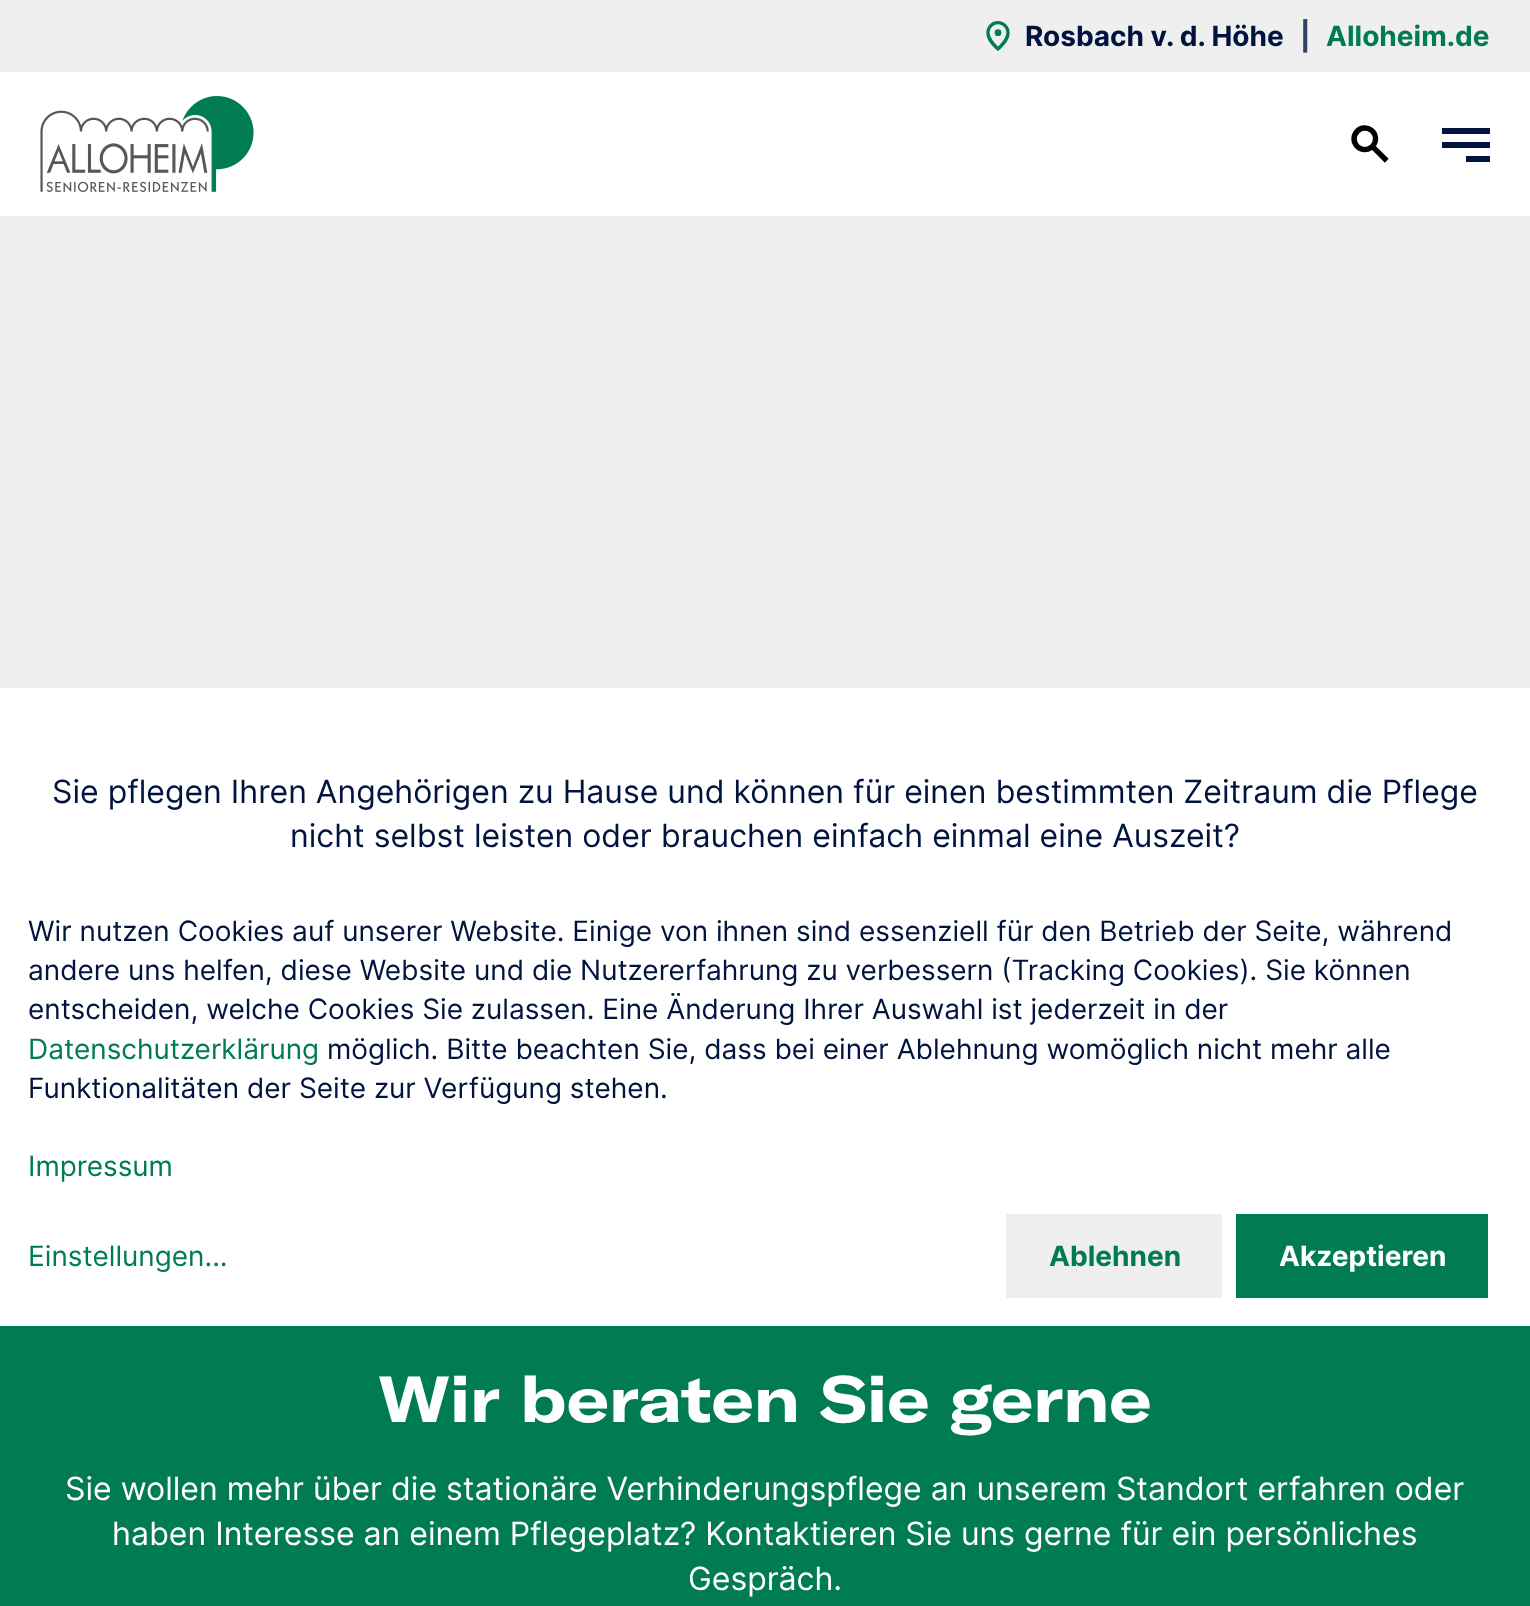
async function draw(canvas) {
  canvas.width = 1530
  canvas.height = 1606
  const ctx = canvas.getContext('2d')
  ctx.miterLimit = 4
  ctx.fontKerning = 'normal'
  async function loadImage(src) {
    const img = new Image()
    img.src = src
    await img.decode()
    return img
  }

  ctx.fillStyle = '#fff'
  ctx.fillRect(0, 0, 1530, 1606)
  ctx.fillStyle = '#efeff0'
  ctx.fillRect(0, 0, 1530, 688)
  ctx.drawImage(await loadImage('image0.png'), 986, 21, 24, 30)
  ctx.font = 'bold 28px Inter'
  ctx.fillStyle = '#00143f'
  ctx.fillText('Rosbach v. d. Höhe', 1025, 46)
  ctx.fillStyle = '#304062'
  ctx.fillText('|', 1300, 46)
  ctx.fillStyle = '#007c50'
  ctx.fillText('Alloheim.de', 1326, 46)
  ctx.fillStyle = '#fff'
  ctx.fillRect(0, 72, 1530, 144)
  ctx.drawImage(await loadImage('image1.png'), 40, 96, 214, 96)
  ctx.drawImage(await loadImage('image2.png'), 1351, 125, 38, 38)
  ctx.fillStyle = '#00143f'
  ctx.fillRect(1442, 128, 48, 6)
  ctx.fillRect(1442, 142, 48, 6)
  ctx.fillRect(1466, 156, 24, 6)
  ctx.font = '32px Inter'
  ctx.fillText('Sie pflegen Ihren Angehörigen zu Hause und können für einen bestimmten Zeitraum die Pflege', 52, 803)
  ctx.fillText('nicht selbst leisten oder brauchen einfach einmal eine Auszeit?', 290, 847)
  ctx.fillStyle = '#007c50'
  ctx.fillRect(0, 1326, 1530, 280)
  ctx.font = 'bold 64px GT America'
  ctx.fillStyle = '#fff'
  ctx.fillText('Wir beraten Sie gerne', 378, 1422)
  ctx.font = '32px Inter'
  ctx.fillText('Sie wollen mehr über die stationäre Verhinderungspflege an unserem Standort erfahren oder', 65, 1500)
  ctx.fillText('haben Interesse an einem Pflegeplatz? Kontaktieren Sie uns gerne für ein persönliches', 112, 1545)
  ctx.fillText('Gespräch.', 688, 1590)
  ctx.font = '28px Inter'
  ctx.fillStyle = '#00143f'
  ctx.fillText('Wir nutzen Cookies auf unserer Website. Einige von ihnen sind essenziell für den Betrieb der Seite, während', 28, 941)
  ctx.fillText('andere uns helfen, diese Website und die Nutzererfahrung zu verbessern (Tracking Cookies). Sie können', 28, 980)
  ctx.fillText('entscheiden, welche Cookies Sie zulassen. Eine Änderung Ihrer Auswahl ist jederzeit in der', 28, 1019)
  ctx.fillStyle = '#007c50'
  ctx.fillText('Datenschutzerklärung', 28, 1059)
  ctx.fillStyle = '#00143f'
  ctx.fillText('möglich. Bitte beachten Sie, dass bei einer Ablehnung womöglich nicht mehr alle', 327, 1059)
  ctx.fillText('Funktionalitäten der Seite zur Verfügung stehen.', 28, 1098)
  ctx.fillStyle = '#007c50'
  ctx.fillText('Impressum', 28, 1176)
  ctx.fillText('Einstellungen...', 28, 1266)
  ctx.fillStyle = '#efeff0'
  ctx.fillRect(1006, 1214, 216, 84)
  ctx.font = 'bold 28px Inter'
  ctx.fillStyle = '#007c50'
  ctx.fillText('Ablehnen', 1049, 1266)
  ctx.fillRect(1236, 1214, 252, 84)
  ctx.fillStyle = '#fff'
  ctx.fillText('Akzeptieren', 1279, 1266)
}

draw(document.querySelector('canvas'))
